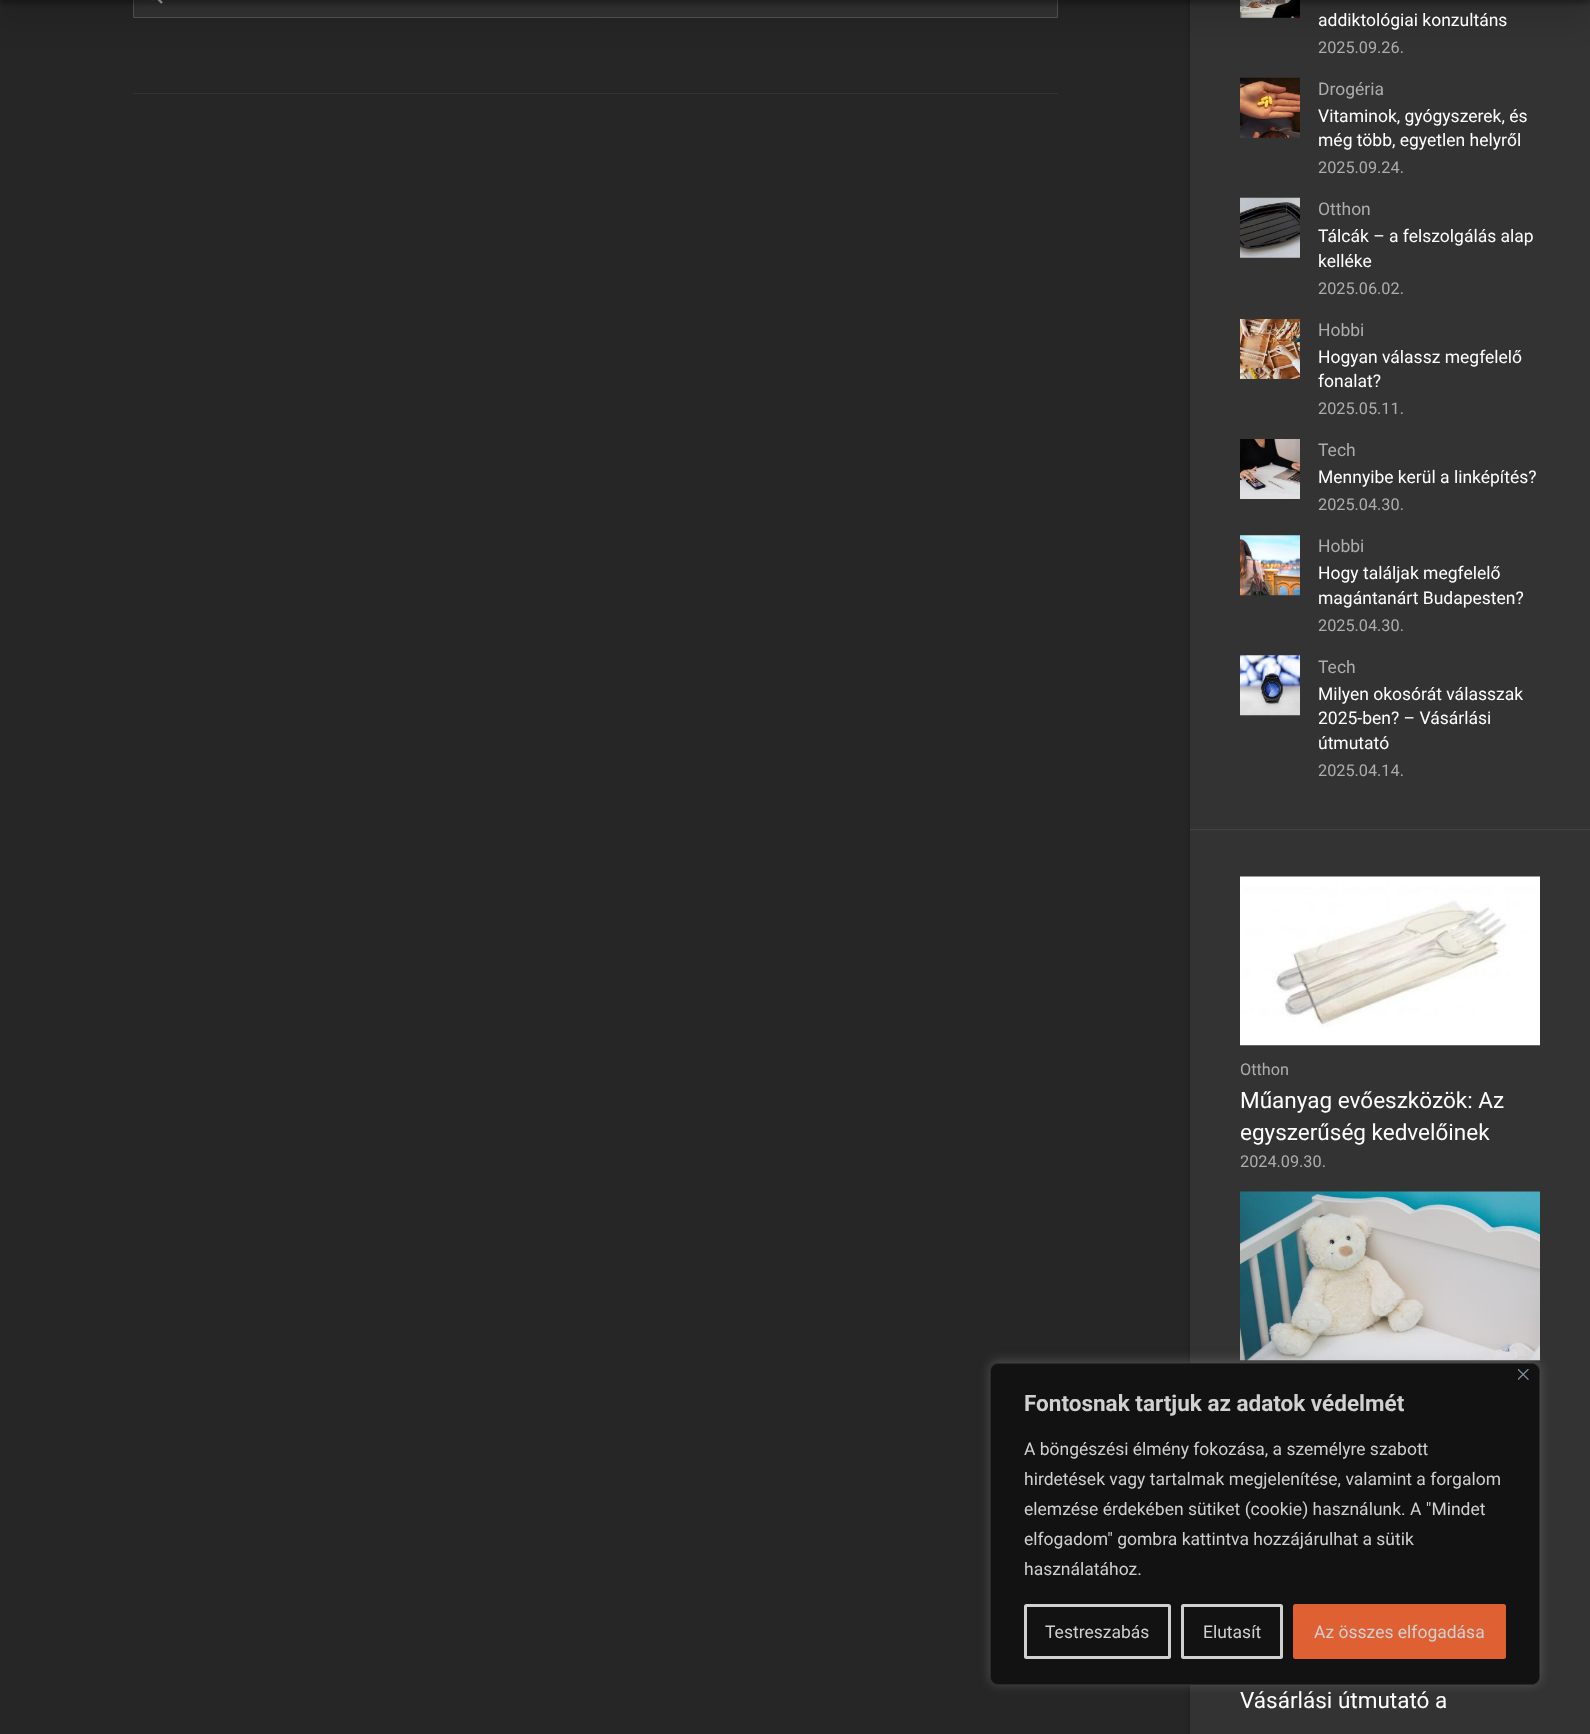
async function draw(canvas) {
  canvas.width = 1590
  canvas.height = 1734
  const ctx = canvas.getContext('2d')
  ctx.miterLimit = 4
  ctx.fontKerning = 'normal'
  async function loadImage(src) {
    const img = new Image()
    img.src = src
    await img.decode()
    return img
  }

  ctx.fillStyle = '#262626'
  ctx.fillRect(0, 0, 1590, 1734)
  ctx.fillStyle = '#333'
  ctx.beginPath()
  ctx.rect(133.5, -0.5, 924, 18)
  ctx.fill()
  ctx.strokeStyle = '#555'
  ctx.stroke()
  ctx.drawImage(await loadImage('image0.png'), 151, 0, 12, 4)
  ctx.fillStyle = '#0000004d'
  ctx.filter = 'blur(2px)'
  ctx.beginPath()
  ctx.rect(1190, -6, 400, 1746)
  ctx.fill()
  ctx.filter = 'none'
  ctx.fillStyle = '#333'
  ctx.fillRect(1190, 0, 400, 1734)
  ctx.drawImage(await loadImage('image1.png'), 1240, 0, 60, 18)
  ctx.fillStyle = '#0000004d'
  ctx.filter = 'blur(2px)'
  ctx.beginPath()
  ctx.rect(0, -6, 1590, 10)
  ctx.fill()
  ctx.filter = 'none'
  ctx.fillStyle = '#0000001a'
  ctx.filter = 'blur(12.5px)'
  ctx.beginPath()
  ctx.rect(0, -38, 1590, 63)
  ctx.fill()
  ctx.filter = 'none'
  ctx.fillStyle = '#333'
  ctx.fillRect(133, 93, 925, 1)
  ctx.fillStyle = '#434343'
  ctx.fillRect(1190, 829, 400, 1)
  ctx.font = '17.5px Roboto'
  ctx.fillStyle = '#fff'
  ctx.fillText('addiktológiai konzultáns', 1318, 26)
  ctx.font = '16.25px Roboto'
  ctx.fillStyle = '#adadad'
  ctx.fillText('2025.09.26.', 1318, 53)
  ctx.drawImage(await loadImage('image2.png'), 1240, 77, 60, 61)
  ctx.font = '17.5px Roboto'
  ctx.fillText('Drogéria', 1318, 95)
  ctx.fillStyle = '#fff'
  ctx.fillText('Vitaminok, gyógyszerek, és', 1318, 122)
  ctx.fillText('még több, egyetlen helyről', 1318, 146)
  ctx.font = '16.25px Roboto'
  ctx.fillStyle = '#adadad'
  ctx.fillText('2025.09.24.', 1318, 173)
  ctx.drawImage(await loadImage('image3.png'), 1240, 197, 60, 61)
  ctx.font = '17.5px Roboto'
  ctx.fillText('Otthon', 1318, 215)
  ctx.fillStyle = '#fff'
  ctx.fillText('Tálcák – a felszolgálás alap', 1318, 242)
  ctx.fillText('kelléke', 1318, 267)
  ctx.font = '16.25px Roboto'
  ctx.fillStyle = '#adadad'
  ctx.fillText('2025.06.02.', 1318, 294)
  ctx.drawImage(await loadImage('image4.png'), 1240, 319, 60, 60)
  ctx.font = '17.5px Roboto'
  ctx.fillText('Hobbi', 1318, 336)
  ctx.fillStyle = '#fff'
  ctx.fillText('Hogyan válassz megfelelő', 1318, 363)
  ctx.fillText('fonalat?', 1318, 387)
  ctx.font = '16.25px Roboto'
  ctx.fillStyle = '#adadad'
  ctx.fillText('2025.05.11.', 1318, 414)
  ctx.drawImage(await loadImage('image5.png'), 1240, 439, 60, 60)
  ctx.font = '17.5px Roboto'
  ctx.fillText('Tech', 1318, 456)
  ctx.fillStyle = '#fff'
  ctx.fillText('Mennyibe kerül a linképítés?', 1318, 483)
  ctx.font = '16.25px Roboto'
  ctx.fillStyle = '#adadad'
  ctx.fillText('2025.04.30.', 1318, 510)
  ctx.drawImage(await loadImage('image6.png'), 1240, 535, 60, 61)
  ctx.font = '17.5px Roboto'
  ctx.fillText('Hobbi', 1318, 552)
  ctx.fillStyle = '#fff'
  ctx.fillText('Hogy találjak megfelelő', 1318, 579)
  ctx.fillText('magántanárt Budapesten?', 1318, 604)
  ctx.font = '16.25px Roboto'
  ctx.fillStyle = '#adadad'
  ctx.fillText('2025.04.30.', 1318, 631)
  ctx.drawImage(await loadImage('image7.png'), 1240, 655, 60, 61)
  ctx.font = '17.5px Roboto'
  ctx.fillText('Tech', 1318, 673)
  ctx.fillStyle = '#fff'
  ctx.fillText('Milyen okosórát válasszak', 1318, 700)
  ctx.fillText('2025-ben? – Vásárlási', 1318, 724)
  ctx.fillText('útmutató', 1318, 749)
  ctx.font = '16.25px Roboto'
  ctx.fillStyle = '#adadad'
  ctx.fillText('2025.04.14.', 1318, 776)
  ctx.drawImage(await loadImage('image8.png'), 1240, 876, 300, 170)
  ctx.fillText('Otthon', 1240, 1075)
  ctx.font = '22.5px Roboto'
  ctx.fillStyle = '#fff'
  ctx.fillText('Műanyag evőeszközök: Az', 1240, 1108)
  ctx.fillText('egyszerűség kedvelőinek', 1240, 1140)
  ctx.font = '16.25px Roboto'
  ctx.fillStyle = '#adadad'
  ctx.fillText('2024.09.30.', 1240, 1167)
  ctx.drawImage(await loadImage('image9.png'), 1240, 1191, 300, 170)
  ctx.font = '22.5px Roboto'
  ctx.fillStyle = '#fff'
  ctx.fillText('Vásárlási útmutató a', 1240, 1708)
  ctx.fillStyle = '#acabab4d'
  ctx.filter = 'blur(6px)'
  ctx.beginPath()
  ctx.roundRect(990, 1361, 550, 323, 8)
  ctx.fill()
  ctx.filter = 'none'
  ctx.fillStyle = '#121212'
  ctx.beginPath()
  ctx.roundRect(990.5, 1363.5, 549, 321, 7.5)
  ctx.fill()
  ctx.strokeStyle = '#2a2a2a'
  ctx.stroke()
  ctx.drawImage(await loadImage('image10.png'), 1518, 1369, 11, 11)
  ctx.font = 'bold 22.5px Roboto'
  ctx.fillStyle = '#d0d0d0'
  ctx.fillText('Fontosnak tartjuk az adatok védelmét', 1024, 1411)
  ctx.font = '17.5px Roboto'
  ctx.fillText('A böngészési élmény fokozása, a személyre szabott', 1024, 1455)
  ctx.fillText('hirdetések vagy tartalmak megjelenítése, valamint a forgalom', 1024, 1485)
  ctx.fillText('elemzése érdekében sütiket (cookie) használunk. A "Mindet', 1024, 1515)
  ctx.fillText('elfogadom" gombra kattintva hozzájárulhat a sütik', 1024, 1545)
  ctx.fillText('használatához.', 1024, 1575)
  ctx.beginPath()
  ctx.roundRect(1025.5, 1605.5, 144, 52, 1)
  ctx.strokeStyle = '#d0d0d0'
  ctx.lineWidth = 3
  ctx.stroke()
  ctx.fillText('Testreszabás', 1045, 1638)
  ctx.beginPath()
  ctx.roundRect(1182.5, 1605.5, 99, 52, 1)
  ctx.stroke()
  ctx.fillText('Elutasít', 1203, 1638)
  ctx.fillStyle = '#de6033'
  ctx.beginPath()
  ctx.roundRect(1294.5, 1605.5, 210, 52, 1)
  ctx.fill()
  ctx.strokeStyle = '#de6033'
  ctx.stroke()
  ctx.fillStyle = '#d0d0d0'
  ctx.fillText('Az összes elfogadása', 1314, 1638)
}

draw(document.querySelector('canvas'))
